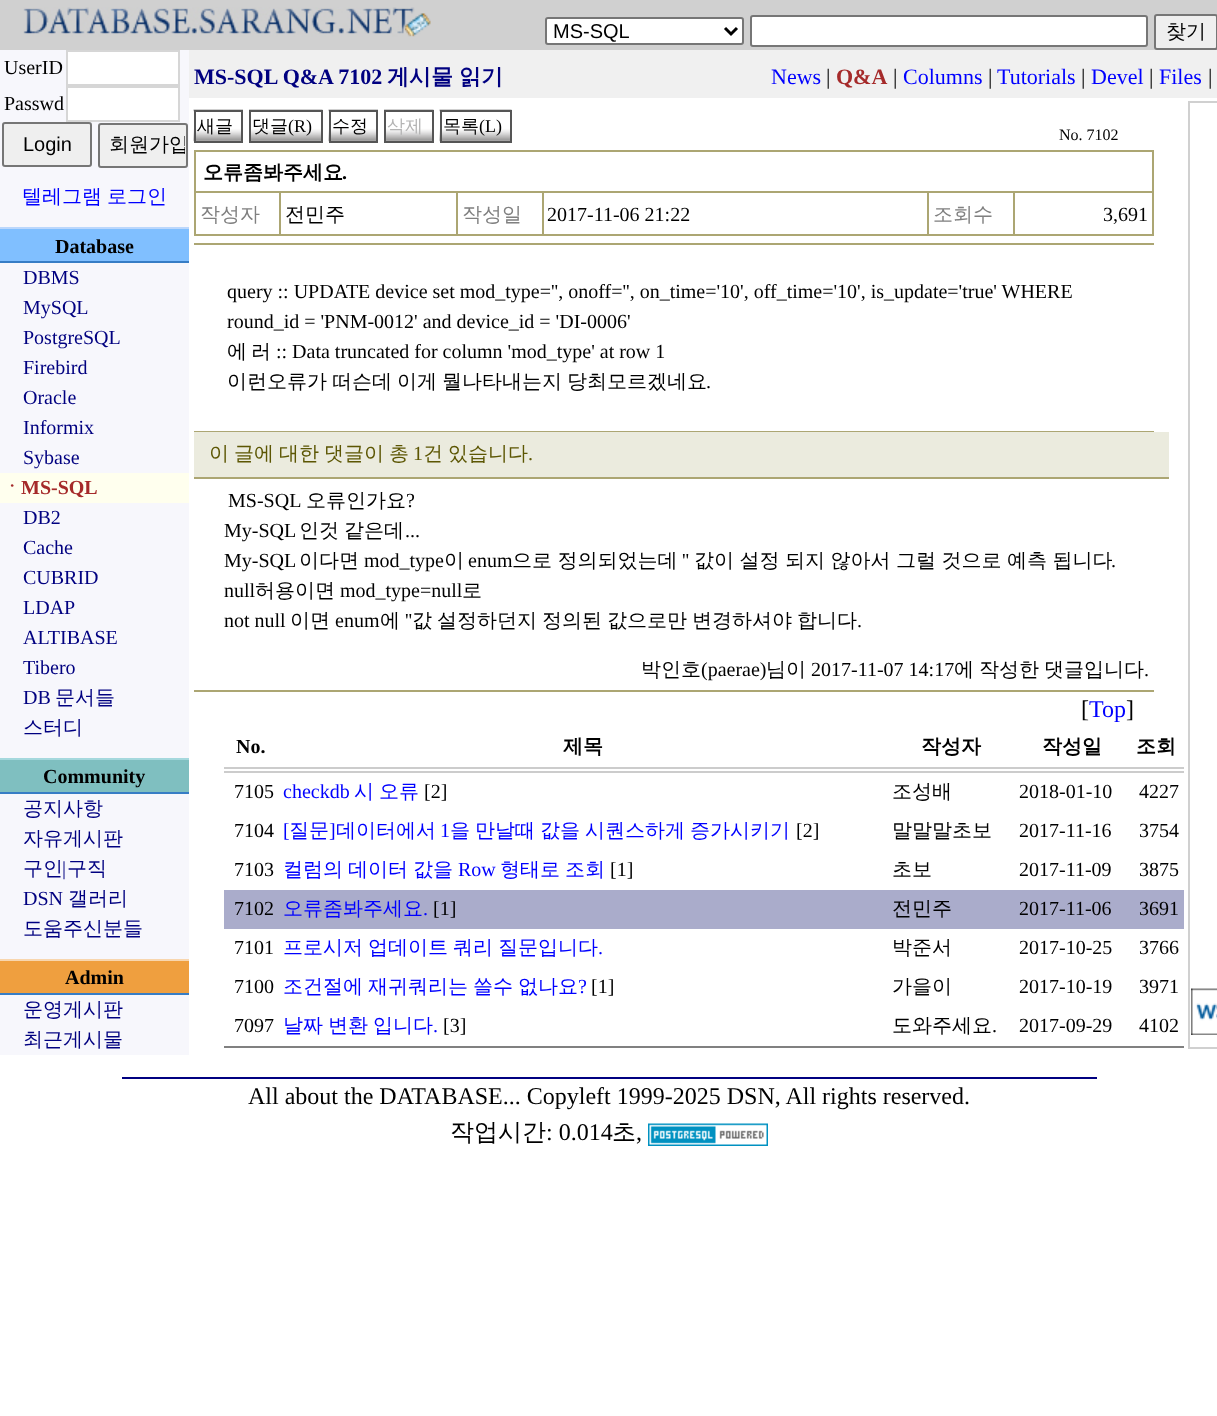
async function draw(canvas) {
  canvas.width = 1217
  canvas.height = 1416
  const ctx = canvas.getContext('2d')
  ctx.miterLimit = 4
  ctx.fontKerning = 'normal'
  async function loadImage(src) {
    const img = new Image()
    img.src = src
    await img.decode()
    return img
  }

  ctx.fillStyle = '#fff'
  ctx.fillRect(0, 0, 1217, 1416)
  ctx.fillStyle = '#d0d0d0'
  ctx.fillRect(0, 0, 1217, 50)
  ctx.drawImage(await loadImage('image0.png'), 23, 7, 408, 30)
  ctx.fillStyle = '#fff'
  ctx.beginPath()
  ctx.roundRect(546, 18, 197, 26, 2)
  ctx.fill()
  ctx.strokeStyle = '#767676'
  ctx.lineWidth = 2
  ctx.stroke()
  ctx.beginPath()
  ctx.moveTo(725, 28)
  ctx.lineTo(731, 34)
  ctx.lineTo(737, 28)
  ctx.strokeStyle = '#000'
  ctx.lineWidth = 3
  ctx.stroke()
  ctx.font = '20px Liberation Sans'
  ctx.fillStyle = '#000'
  ctx.fillText('MS-SQL', 553, 38)
  ctx.fillStyle = '#fff'
  ctx.beginPath()
  ctx.roundRect(751, 16, 396, 30, 2)
  ctx.fill()
  ctx.strokeStyle = '#767676'
  ctx.lineWidth = 2
  ctx.stroke()
  ctx.fillStyle = '#efefef'
  ctx.beginPath()
  ctx.roundRect(1155, 15, 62, 34, 2)
  ctx.fill()
  ctx.stroke()
  ctx.font = '500 20px WenQuanYi Zen Hei'
  ctx.fillStyle = '#000'
  ctx.fillText('찾기', 1166, 38)
  ctx.fillStyle = '#f7f7fc'
  ctx.fillRect(0, 50, 189, 1005)
  ctx.font = '20px Liberation Serif'
  ctx.fillStyle = '#000'
  ctx.fillText('UserID', 4, 74)
  ctx.fillStyle = '#fff'
  ctx.beginPath()
  ctx.rect(67, 51, 112, 34)
  ctx.fill()
  ctx.strokeStyle = '#d6d6d6'
  ctx.stroke()
  ctx.fillStyle = '#000'
  ctx.fillText('Passwd', 4, 110)
  ctx.fillStyle = '#fff'
  ctx.beginPath()
  ctx.rect(67, 87, 112, 34)
  ctx.fill()
  ctx.stroke()
  ctx.fillStyle = '#efefef'
  ctx.beginPath()
  ctx.roundRect(3, 123, 88, 43, 2)
  ctx.fill()
  ctx.strokeStyle = '#767676'
  ctx.stroke()
  ctx.font = '20px Liberation Sans'
  ctx.fillStyle = '#000'
  ctx.fillText('Login', 23, 151)
  ctx.fillStyle = '#efefef'
  ctx.beginPath()
  ctx.roundRect(99, 124, 88, 43, 2)
  ctx.fill()
  ctx.stroke()
  ctx.save()
  ctx.beginPath()
  ctx.rect(101, 126, 84, 39)
  ctx.clip()
  ctx.font = '500 20px WenQuanYi Zen Hei'
  ctx.fillStyle = '#000'
  ctx.fillText('회원가입', 109, 151)
  ctx.restore()
  ctx.wordSpacing = '-1px'
  ctx.font = '500 20px WenQuanYi Zen Hei'
  ctx.fillStyle = '#00f'
  ctx.fillText('텔레그램 로그인', 22, 203)
  ctx.fillStyle = '#80bfff'
  ctx.fillRect(0, 229, 189, 32)
  ctx.fillStyle = '#bbd7fc'
  ctx.fillRect(0, 227, 189, 2)
  ctx.fillStyle = '#377dc5'
  ctx.fillRect(0, 261, 189, 2)
  ctx.wordSpacing = '0px'
  ctx.font = 'bold 20px Liberation Serif'
  ctx.fillStyle = '#000'
  ctx.fillText('Database', 55, 253)
  ctx.font = '20px Liberation Serif'
  ctx.fillStyle = '#000080'
  ctx.fillText('DBMS', 23, 284)
  ctx.fillText('MySQL', 23, 314)
  ctx.fillText('PostgreSQL', 23, 344)
  ctx.fillText('Firebird', 23, 374)
  ctx.fillText('Oracle', 23, 404)
  ctx.fillText('Informix', 23, 434)
  ctx.fillText('Sybase', 23, 464)
  ctx.fillStyle = '#ffe'
  ctx.fillRect(0, 473, 189, 30)
  ctx.font = 'bold 20px WenQuanYi Zen Hei'
  ctx.fillStyle = '#a52a2a'
  ctx.fillText('ㆍ', 2, 494)
  ctx.font = 'bold 20px Liberation Serif'
  ctx.fillText('MS-SQL', 21, 494)
  ctx.font = '20px Liberation Serif'
  ctx.fillStyle = '#000080'
  ctx.fillText('DB2', 23, 524)
  ctx.fillText('Cache', 23, 554)
  ctx.fillText('CUBRID', 23, 584)
  ctx.fillText('LDAP', 23, 614)
  ctx.fillText('ALTIBASE', 23, 644)
  ctx.fillText('Tibero', 23, 674)
  ctx.fillText('DB', 23, 704)
  ctx.font = '500 20px WenQuanYi Zen Hei'
  ctx.fillText('문서들', 55, 704)
  ctx.fillText('스터디', 23, 734)
  ctx.fillStyle = '#7fbfc0'
  ctx.fillRect(0, 760, 189, 32)
  ctx.fillStyle = '#a5d8dd'
  ctx.fillRect(0, 758, 189, 2)
  ctx.fillStyle = '#377dc5'
  ctx.fillRect(0, 792, 189, 2)
  ctx.font = 'bold 20px Liberation Serif'
  ctx.fillStyle = '#000'
  ctx.fillText('Community', 43, 783)
  ctx.font = '500 20px WenQuanYi Zen Hei'
  ctx.fillStyle = '#000080'
  ctx.fillText('공지사항', 23, 815)
  ctx.fillText('자유게시판', 23, 845)
  ctx.fillText('구인', 23, 875)
  ctx.font = '20px Liberation Serif'
  ctx.fillText('|', 62, 875)
  ctx.font = '500 20px WenQuanYi Zen Hei'
  ctx.fillText('구직', 67, 875)
  ctx.font = '20px Liberation Serif'
  ctx.fillText('DSN', 23, 905)
  ctx.font = '500 20px WenQuanYi Zen Hei'
  ctx.fillText('갤러리', 68, 905)
  ctx.fillText('도움주신분들', 23, 935)
  ctx.fillStyle = '#ef9f3f'
  ctx.fillRect(0, 961, 189, 32)
  ctx.fillStyle = '#f8d6ae'
  ctx.fillRect(0, 959, 189, 2)
  ctx.fillStyle = '#377dc5'
  ctx.fillRect(0, 993, 189, 2)
  ctx.font = 'bold 20px Liberation Serif'
  ctx.fillStyle = '#000'
  ctx.fillText('Admin', 65, 984)
  ctx.font = '500 20px WenQuanYi Zen Hei'
  ctx.fillStyle = '#000080'
  ctx.fillText('운영게시판', 23, 1016)
  ctx.fillText('최근게시물', 23, 1046)
  ctx.fillStyle = '#f0f0f0'
  ctx.fillRect(189, 50, 1028, 48)
  ctx.font = 'bold 22px Liberation Serif'
  ctx.fillStyle = '#000080'
  ctx.fillText('MS-SQL Q&A 7102', 194, 84)
  ctx.font = 'bold 22px WenQuanYi Zen Hei'
  ctx.fillText('게시물', 387, 84)
  ctx.fillText('읽기', 459, 84)
  ctx.font = '22px Liberation Serif'
  ctx.fillStyle = '#00f'
  ctx.fillText('News', 771, 84)
  ctx.fillStyle = '#000'
  ctx.fillText('|', 826, 84)
  ctx.font = 'bold 22px Liberation Serif'
  ctx.fillStyle = '#a52a2a'
  ctx.fillText('Q&A', 836, 84)
  ctx.font = '22px Liberation Serif'
  ctx.fillStyle = '#000'
  ctx.fillText('|', 893, 84)
  ctx.fillStyle = '#00f'
  ctx.fillText('Columns', 903, 84)
  ctx.fillStyle = '#000'
  ctx.fillText('|', 988, 84)
  ctx.fillStyle = '#00f'
  ctx.fillText('Tutorials', 997, 84)
  ctx.fillStyle = '#000'
  ctx.fillText('|', 1081, 84)
  ctx.fillStyle = '#00f'
  ctx.fillText('Devel', 1091, 84)
  ctx.fillStyle = '#000'
  ctx.fillText('|', 1149, 84)
  ctx.fillStyle = '#00f'
  ctx.fillText('Files', 1159, 84)
  ctx.fillStyle = '#000'
  ctx.fillText('|', 1208, 84)
  ctx.drawImage(await loadImage('image1.png'), 193, 109, 50, 34)
  ctx.strokeStyle = '#555'
  ctx.strokeRect(195, 111, 47, 31)
  ctx.font = '500 18px WenQuanYi Zen Hei'
  ctx.fillText('새글', 197, 132)
  ctx.drawImage(await loadImage('image2.png'), 249, 109, 74, 32)
  ctx.strokeRect(250, 111, 72, 31)
  ctx.fillText('댓글', 252, 132)
  ctx.font = '18px Liberation Serif'
  ctx.fillText('(R)', 288, 132)
  ctx.drawImage(await loadImage('image1.png'), 328, 109, 50, 34)
  ctx.strokeRect(330, 111, 47, 31)
  ctx.font = '500 18px WenQuanYi Zen Hei'
  ctx.fillText('수정', 332, 132)
  ctx.drawImage(await loadImage('image3.png'), 384, 109, 50, 32)
  ctx.strokeRect(385, 111, 48, 31)
  ctx.fillStyle = '#b4b4b4'
  ctx.fillText('삭제', 387, 132)
  ctx.drawImage(await loadImage('image4.png'), 439, 109, 73, 34)
  ctx.strokeRect(441, 111, 70, 31)
  ctx.fillStyle = '#000'
  ctx.fillText('목록', 443, 132)
  ctx.font = '18px Liberation Serif'
  ctx.fillText('(L)', 479, 132)
  ctx.font = '16px Liberation Serif'
  ctx.fillText('No. 7102', 1059, 140)
  ctx.fillStyle = '#aca673'
  ctx.fillRect(194, 150, 960, 2)
  ctx.fillRect(194, 150, 2, 86)
  ctx.fillRect(1152, 152, 2, 40)
  ctx.fillRect(195, 191, 959, 2)
  ctx.font = 'bold 20px WenQuanYi Zen Hei'
  ctx.fillStyle = '#000'
  ctx.fillText('오류좀봐주세요', 203, 179)
  ctx.font = 'bold 20px Liberation Serif'
  ctx.fillText('.', 342, 179)
  ctx.fillStyle = '#aca673'
  ctx.fillRect(279, 192, 2, 44)
  ctx.fillRect(195, 234, 86, 2)
  ctx.font = '500 20px WenQuanYi Zen Hei'
  ctx.fillStyle = '#808080'
  ctx.fillText('작성자', 200, 221)
  ctx.fillStyle = '#aca673'
  ctx.fillRect(456, 192, 2, 44)
  ctx.fillRect(281, 234, 177, 2)
  ctx.fillStyle = '#000'
  ctx.fillText('전민주', 285, 221)
  ctx.fillStyle = '#aca673'
  ctx.fillRect(542, 192, 2, 44)
  ctx.fillRect(458, 234, 85, 2)
  ctx.fillStyle = '#808080'
  ctx.fillText('작성일', 462, 221)
  ctx.fillStyle = '#aca673'
  ctx.fillRect(927, 192, 2, 44)
  ctx.fillRect(543, 234, 386, 2)
  ctx.font = '20px Liberation Serif'
  ctx.fillStyle = '#000'
  ctx.fillText('2017-11-06 21:22', 547, 221)
  ctx.fillStyle = '#aca673'
  ctx.fillRect(1013, 192, 2, 44)
  ctx.fillRect(929, 234, 85, 2)
  ctx.font = '500 20px WenQuanYi Zen Hei'
  ctx.fillStyle = '#808080'
  ctx.fillText('조회수', 933, 221)
  ctx.fillStyle = '#aca673'
  ctx.fillRect(1152, 192, 2, 44)
  ctx.fillRect(1014, 234, 140, 2)
  ctx.font = '20px Liberation Serif'
  ctx.fillStyle = '#000'
  ctx.fillText('3,691', 1103, 221)
  ctx.fillStyle = '#aca673'
  ctx.fillRect(194, 243, 960, 2)
  ctx.fillRect(194, 431, 960, 1)
  ctx.fillStyle = '#000'
  ctx.fillText('query :: UPDATE device set mod_type=\'\', onoff=\'\', on_time=\'10\', off_time=\'10\', is_update=\'true\' WHERE', 227, 298)
  ctx.fillText('round_id = \'PNM-0012\' and device_id = \'DI-0006\'', 227, 328)
  ctx.font = '500 20px WenQuanYi Zen Hei'
  ctx.fillText('에', 227, 358)
  ctx.fillText('러', 251, 358)
  ctx.font = '20px Liberation Serif'
  ctx.fillText(':: Data truncated for column \'mod_type\' at row 1', 276, 358)
  ctx.wordSpacing = '-1px'
  ctx.font = '500 20px WenQuanYi Zen Hei'
  ctx.fillText('이런오류가 떠슨데 이게 뭘나타내는지 당최모르겠네요', 227, 388)
  ctx.wordSpacing = '0px'
  ctx.font = '20px Liberation Serif'
  ctx.fillText('.', 706, 388)
  ctx.fillStyle = '#ebebde'
  ctx.fillRect(194, 432, 975, 45)
  ctx.fillStyle = '#aca673'
  ctx.fillRect(194, 477, 975, 2)
  ctx.wordSpacing = '-1px'
  ctx.font = '500 20px WenQuanYi Zen Hei'
  ctx.fillStyle = '#5c5603'
  ctx.fillText('이 글에 대한 댓글이 총', 209, 460)
  ctx.wordSpacing = '0px'
  ctx.font = '20px Liberation Serif'
  ctx.fillText('1', 413, 460)
  ctx.wordSpacing = '-1px'
  ctx.font = '500 20px WenQuanYi Zen Hei'
  ctx.fillText('건 있습니다', 423, 460)
  ctx.wordSpacing = '0px'
  ctx.font = '20px Liberation Serif'
  ctx.fillText('.', 528, 460)
  ctx.fillStyle = '#000'
  ctx.fillText('MS-SQL', 228, 507)
  ctx.font = '500 20px WenQuanYi Zen Hei'
  ctx.fillText('오류인가요', 306, 507)
  ctx.font = '20px Liberation Serif'
  ctx.fillText('?', 406, 507)
  ctx.fillText('My-SQL', 224, 537)
  ctx.wordSpacing = '-1px'
  ctx.font = '500 20px WenQuanYi Zen Hei'
  ctx.fillText('인것 같은데', 299, 537)
  ctx.wordSpacing = '0px'
  ctx.font = '20px Liberation Serif'
  ctx.fillText('...', 405, 537)
  ctx.fillText('My-SQL', 224, 567)
  ctx.font = '500 20px WenQuanYi Zen Hei'
  ctx.fillText('이다면', 299, 567)
  ctx.font = '20px Liberation Serif'
  ctx.fillText('mod_type', 364, 567)
  ctx.font = '500 20px WenQuanYi Zen Hei'
  ctx.fillText('이', 444, 567)
  ctx.wordSpacing = '-0.5px'
  ctx.fillText('으로 정의되었는데', 512, 567)
  ctx.wordSpacing = '0px'
  ctx.font = '20px Liberation Serif'
  ctx.fillText('\'\'', 682, 567)
  ctx.wordSpacing = '-0.5px'
  ctx.font = '500 20px WenQuanYi Zen Hei'
  ctx.fillText('값이 설정 되지 않아서 그럴 것으로 예측 됩니다', 694, 567)
  ctx.wordSpacing = '0px'
  ctx.font = '20px Liberation Serif'
  ctx.fillText('enum', 468, 567)
  ctx.fillText('.', 1111, 567)
  ctx.fillText('null', 224, 597)
  ctx.font = '500 20px WenQuanYi Zen Hei'
  ctx.fillText('허용이면', 255, 597)
  ctx.font = '20px Liberation Serif'
  ctx.fillText('mod_type=null', 340, 597)
  ctx.font = '500 20px WenQuanYi Zen Hei'
  ctx.fillText('로', 462, 597)
  ctx.font = '20px Liberation Serif'
  ctx.fillText('not null', 224, 627)
  ctx.font = '500 20px WenQuanYi Zen Hei'
  ctx.fillText('이면', 290, 627)
  ctx.fillText('에', 380, 627)
  ctx.font = '20px Liberation Serif'
  ctx.fillText('\'\'', 405, 627)
  ctx.font = '500 20px WenQuanYi Zen Hei'
  ctx.fillText('값', 412, 627)
  ctx.fillText('설정하던지', 437, 627)
  ctx.fillText('정의된', 542, 627)
  ctx.fillText('값으로만', 607, 627)
  ctx.fillText('변경하셔야', 692, 627)
  ctx.fillText('합니다', 797, 627)
  ctx.font = '20px Liberation Serif'
  ctx.fillText('enum', 335, 627)
  ctx.fillText('.', 857, 627)
  ctx.fillStyle = '#aca673'
  ctx.fillRect(194, 690, 960, 2)
  ctx.font = '500 20px WenQuanYi Zen Hei'
  ctx.fillStyle = '#000'
  ctx.fillText('박인호', 641, 676)
  ctx.font = '20px Liberation Serif'
  ctx.fillText('(paerae)', 701, 676)
  ctx.font = '500 20px WenQuanYi Zen Hei'
  ctx.fillText('님이', 766, 676)
  ctx.font = '20px Liberation Serif'
  ctx.fillText('2017-11-07 14:17', 811, 676)
  ctx.font = '500 20px WenQuanYi Zen Hei'
  ctx.fillText('에', 954, 676)
  ctx.fillText('작성한', 979, 676)
  ctx.fillText('댓글입니다', 1044, 676)
  ctx.font = '20px Liberation Serif'
  ctx.fillText('.', 1144, 676)
  ctx.font = '24px Liberation Serif'
  ctx.fillText('[', 1081, 717)
  ctx.fillStyle = '#00f'
  ctx.fillText('Top', 1089, 717)
  ctx.fillStyle = '#000'
  ctx.fillText(']', 1126, 717)
  ctx.fillStyle = '#808080'
  ctx.fillRect(224, 1046, 960, 2)
  ctx.fillStyle = '#ccc'
  ctx.fillRect(224, 767, 960, 2)
  ctx.fillRect(224, 771, 960, 2)
  ctx.font = 'bold 20px Liberation Serif'
  ctx.fillStyle = '#000'
  ctx.fillText('No.', 236, 753)
  ctx.font = 'bold 20px WenQuanYi Zen Hei'
  ctx.fillText('제목', 563, 753)
  ctx.fillText('작성자', 921, 753)
  ctx.fillText('작성일', 1042, 753)
  ctx.fillText('조회', 1136, 753)
  ctx.font = '20px Liberation Serif'
  ctx.fillText('7105', 234, 798)
  ctx.fillStyle = '#00f'
  ctx.fillText('checkdb', 283, 798)
  ctx.wordSpacing = '-1px'
  ctx.font = '500 20px WenQuanYi Zen Hei'
  ctx.fillText('시 오류', 354, 798)
  ctx.wordSpacing = '0px'
  ctx.font = '20px Liberation Serif'
  ctx.fillStyle = '#000'
  ctx.fillText('[2]', 424, 798)
  ctx.font = '500 20px WenQuanYi Zen Hei'
  ctx.fillText('조성배', 892, 798)
  ctx.font = '20px Liberation Serif'
  ctx.fillText('2018-01-10', 1019, 798)
  ctx.fillText('4227', 1139, 798)
  ctx.fillText('7104', 234, 837)
  ctx.fillStyle = '#00f'
  ctx.fillText('[', 283, 837)
  ctx.font = '500 20px WenQuanYi Zen Hei'
  ctx.fillText('질문', 289, 837)
  ctx.font = '20px Liberation Serif'
  ctx.fillText(']', 329, 837)
  ctx.font = '500 20px WenQuanYi Zen Hei'
  ctx.fillText('데이터에서', 336, 837)
  ctx.font = '20px Liberation Serif'
  ctx.fillText('1', 440, 837)
  ctx.wordSpacing = '-1px'
  ctx.font = '500 20px WenQuanYi Zen Hei'
  ctx.fillText('을 만날때 값을 시퀀스하게 증가시키기', 450, 837)
  ctx.wordSpacing = '0px'
  ctx.font = '20px Liberation Serif'
  ctx.fillStyle = '#000'
  ctx.fillText('[2]', 796, 837)
  ctx.font = '500 20px WenQuanYi Zen Hei'
  ctx.fillText('말말말초보', 892, 837)
  ctx.font = '20px Liberation Serif'
  ctx.fillText('2017-11-16', 1019, 837)
  ctx.fillText('3754', 1139, 837)
  ctx.fillText('7103', 234, 876)
  ctx.wordSpacing = '-1px'
  ctx.font = '500 20px WenQuanYi Zen Hei'
  ctx.fillStyle = '#00f'
  ctx.fillText('컬럼의 데이터 값을', 283, 876)
  ctx.wordSpacing = '0px'
  ctx.font = '20px Liberation Serif'
  ctx.fillText('Row', 458, 876)
  ctx.wordSpacing = '-1px'
  ctx.font = '500 20px WenQuanYi Zen Hei'
  ctx.fillText('형태로 조회', 500, 876)
  ctx.wordSpacing = '0px'
  ctx.font = '20px Liberation Serif'
  ctx.fillStyle = '#000'
  ctx.fillText('[1]', 610, 876)
  ctx.font = '500 20px WenQuanYi Zen Hei'
  ctx.fillText('초보', 892, 876)
  ctx.font = '20px Liberation Serif'
  ctx.fillText('2017-11-09', 1019, 876)
  ctx.fillText('3875', 1139, 876)
  ctx.fillStyle = '#aaaccb'
  ctx.fillRect(224, 890, 960, 39)
  ctx.fillStyle = '#000'
  ctx.fillText('7102', 234, 915)
  ctx.font = '500 20px WenQuanYi Zen Hei'
  ctx.fillStyle = '#00f'
  ctx.fillText('오류좀봐주세요', 283, 915)
  ctx.font = '20px Liberation Serif'
  ctx.fillText('.', 423, 915)
  ctx.fillStyle = '#000'
  ctx.fillText('[1]', 433, 915)
  ctx.font = '500 20px WenQuanYi Zen Hei'
  ctx.fillText('전민주', 892, 915)
  ctx.font = '20px Liberation Serif'
  ctx.fillText('2017-11-06', 1019, 915)
  ctx.fillText('3691', 1139, 915)
  ctx.fillText('7101', 234, 954)
  ctx.wordSpacing = '-1px'
  ctx.font = '500 20px WenQuanYi Zen Hei'
  ctx.fillStyle = '#00f'
  ctx.fillText('프로시저 업데이트 쿼리 질문입니다', 283, 954)
  ctx.wordSpacing = '0px'
  ctx.font = '20px Liberation Serif'
  ctx.fillText('.', 598, 954)
  ctx.font = '500 20px WenQuanYi Zen Hei'
  ctx.fillStyle = '#000'
  ctx.fillText('박준서', 892, 954)
  ctx.font = '20px Liberation Serif'
  ctx.fillText('2017-10-25', 1019, 954)
  ctx.fillText('3766', 1139, 954)
  ctx.fillText('7100', 234, 993)
  ctx.wordSpacing = '-1px'
  ctx.font = '500 20px WenQuanYi Zen Hei'
  ctx.fillStyle = '#00f'
  ctx.fillText('조건절에 재귀쿼리는 쓸수 없나요', 283, 993)
  ctx.wordSpacing = '0px'
  ctx.font = '20px Liberation Serif'
  ctx.fillText('?', 578, 993)
  ctx.fillStyle = '#000'
  ctx.fillText('[1]', 591, 993)
  ctx.font = '500 20px WenQuanYi Zen Hei'
  ctx.fillText('가을이', 892, 993)
  ctx.font = '20px Liberation Serif'
  ctx.fillText('2017-10-19', 1019, 993)
  ctx.fillText('3971', 1139, 993)
  ctx.fillText('7097', 234, 1032)
  ctx.wordSpacing = '-1px'
  ctx.font = '500 20px WenQuanYi Zen Hei'
  ctx.fillStyle = '#00f'
  ctx.fillText('날짜 변환 입니다', 283, 1032)
  ctx.wordSpacing = '0px'
  ctx.font = '20px Liberation Serif'
  ctx.fillText('.', 433, 1032)
  ctx.fillStyle = '#000'
  ctx.fillText('[3]', 443, 1032)
  ctx.font = '500 20px WenQuanYi Zen Hei'
  ctx.fillText('도와주세요', 892, 1032)
  ctx.font = '20px Liberation Serif'
  ctx.fillText('.', 992, 1032)
  ctx.fillText('2017-09-29', 1019, 1032)
  ctx.fillText('4102', 1139, 1032)
  ctx.strokeStyle = '#d0d0d0'
  ctx.strokeRect(1189, 102, 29, 946)
  ctx.drawImage(await loadImage('image5.png'), 1191, 988, 26, 47)
  ctx.fillStyle = '#000080'
  ctx.fillRect(122, 1077, 975, 2)
  ctx.font = '24px Liberation Serif'
  ctx.fillStyle = '#000'
  ctx.fillText('All about the DATABASE... Copyleft 1999-2025 DSN, All rights reserved.', 248, 1104)
  ctx.font = '500 24px WenQuanYi Zen Hei'
  ctx.fillText('작업시간', 450, 1140)
  ctx.font = '24px Liberation Serif'
  ctx.fillText(': 0.014', 546, 1140)
  ctx.font = '500 24px WenQuanYi Zen Hei'
  ctx.fillText('초', 612, 1140)
  ctx.font = '24px Liberation Serif'
  ctx.fillText(',', 636, 1140)
  ctx.drawImage(await loadImage('image6.png'), 648, 1123, 120, 23)
}

draw(document.querySelector('canvas'))
